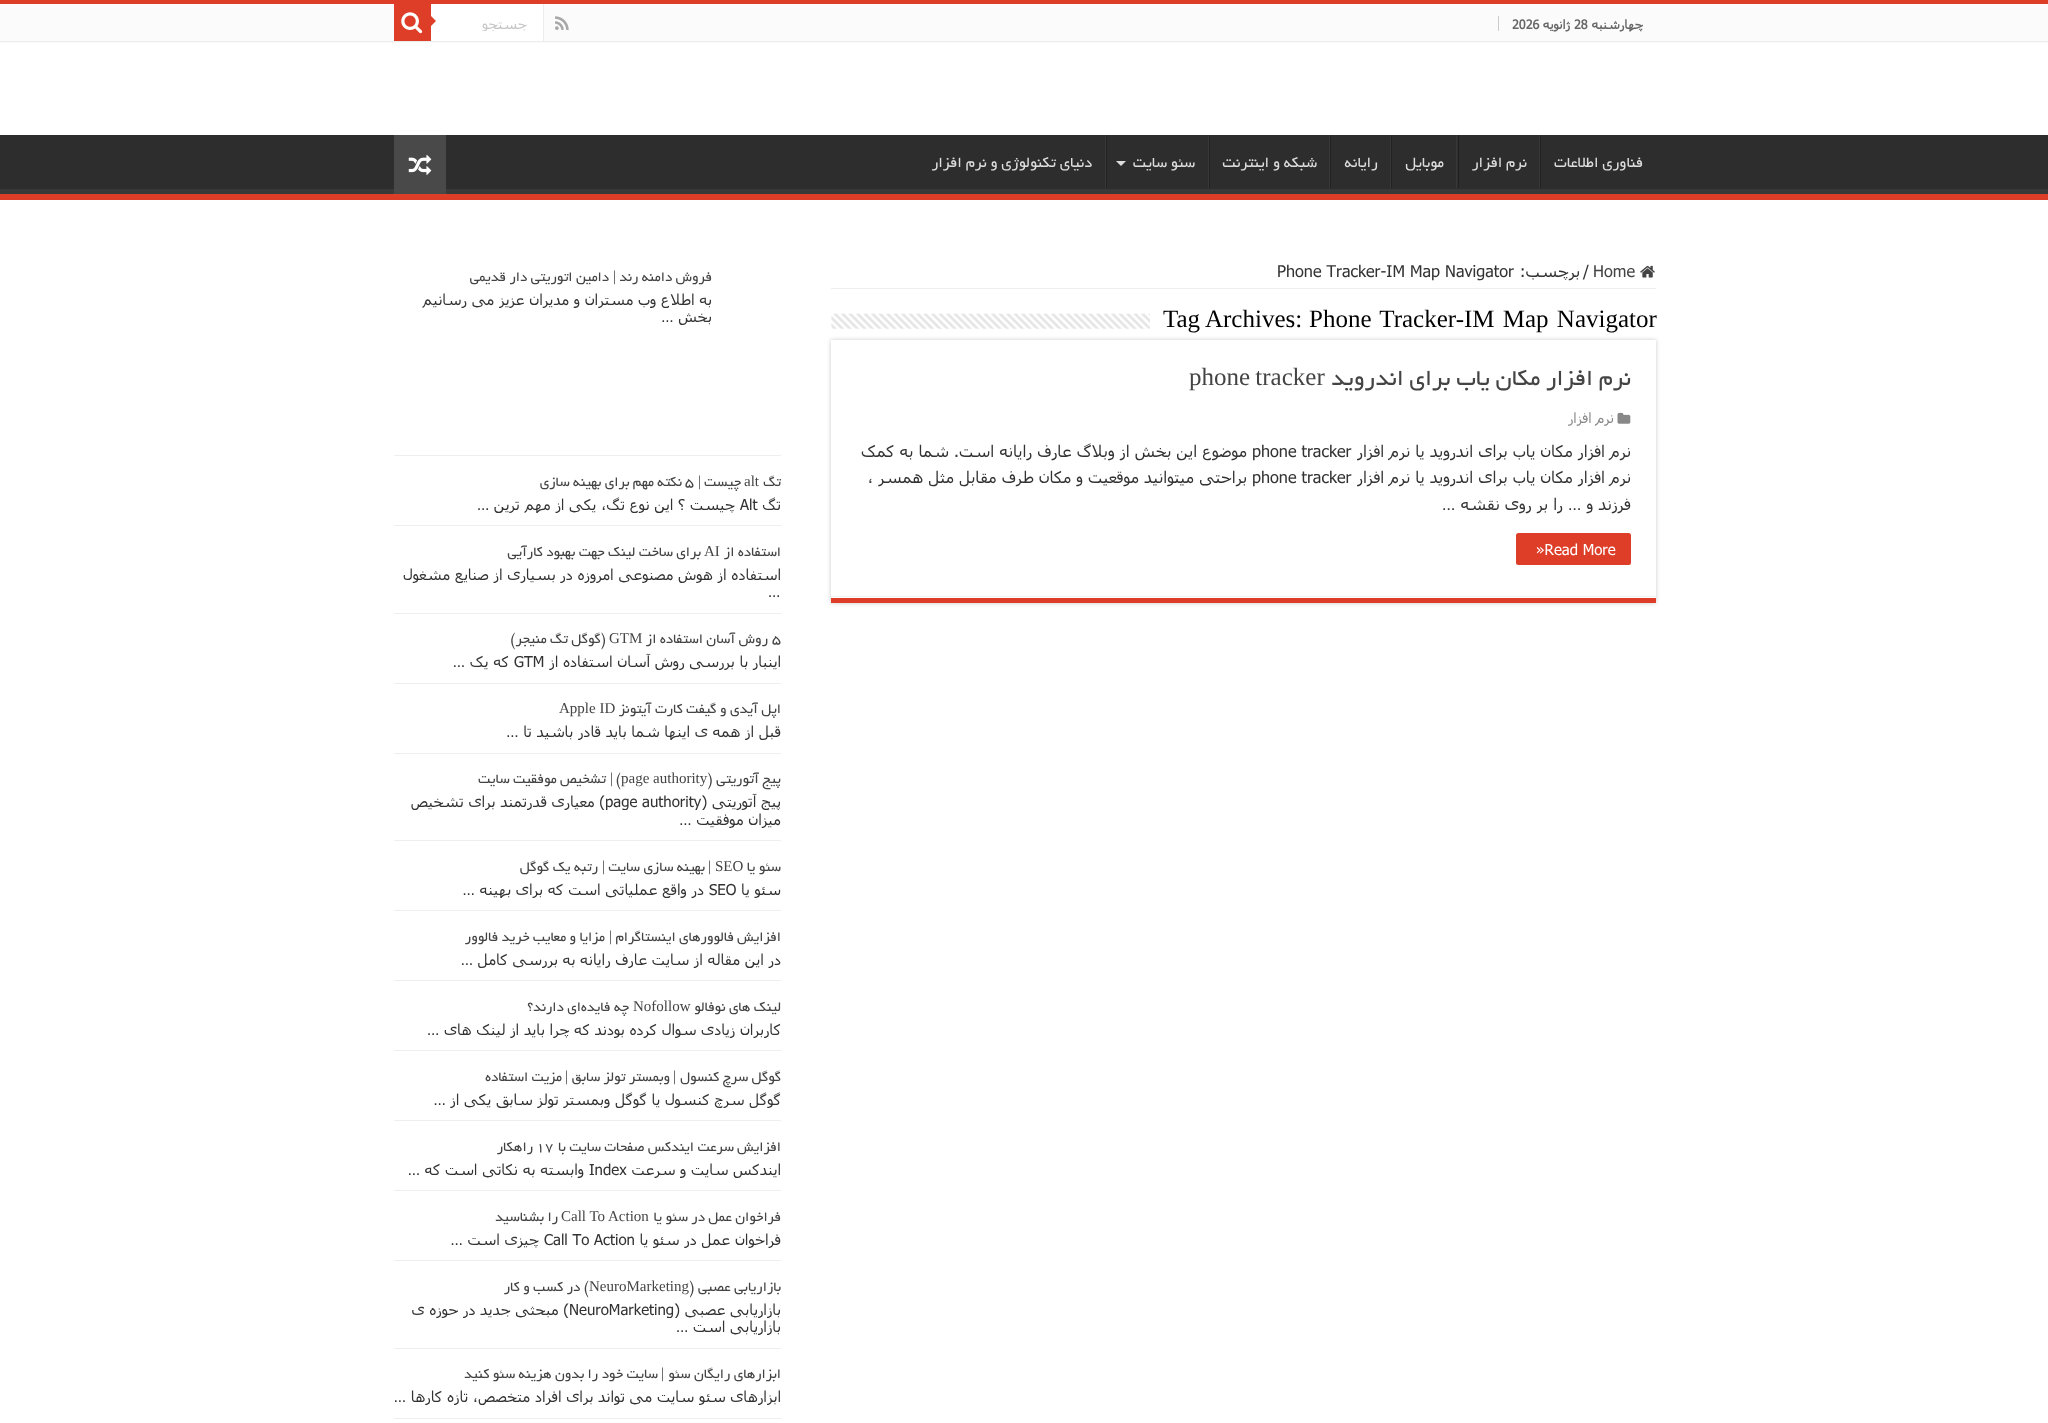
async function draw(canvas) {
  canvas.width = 2048
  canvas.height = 1423
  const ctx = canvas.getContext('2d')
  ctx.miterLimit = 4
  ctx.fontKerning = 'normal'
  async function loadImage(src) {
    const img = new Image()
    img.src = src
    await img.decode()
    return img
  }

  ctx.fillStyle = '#fff'
  ctx.fillRect(0, 0, 2048, 1423)
  ctx.fillStyle = '#de3d28'
  ctx.fillRect(0, 0, 2048, 4)
  ctx.fillStyle = '#fbfbfb'
  ctx.fillRect(0, 4, 2048, 39)
  ctx.fillStyle = '#ececec'
  ctx.fillRect(0, 41, 2048, 1)
  ctx.fillStyle = '#ccc'
  ctx.fillRect(1498, 16, 1, 15)
  ctx.direction = 'rtl'
  ctx.font = 'bold 12.5px Tahoma'
  ctx.fillStyle = '#666'
  ctx.fillText('چهارشنبه', 1643, 29)
  ctx.direction = 'ltr'
  ctx.fillText('28', 1574, 29)
  ctx.direction = 'rtl'
  ctx.fillText('ژانویه', 1570, 29)
  ctx.direction = 'ltr'
  ctx.fillText('2026', 1512, 29)
  ctx.drawImage(await loadImage('image0.png'), 555, 16, 14, 14)
  ctx.fillStyle = '#fff'
  ctx.fillRect(431, 4, 112, 37)
  ctx.fillStyle = '#ececec'
  ctx.fillRect(543, 4, 1, 37)
  ctx.save()
  ctx.beginPath()
  ctx.rect(446, 15, 82, 16)
  ctx.clip()
  ctx.direction = 'rtl'
  ctx.font = '14px Tahoma'
  ctx.fillStyle = '#c5c5c5'
  ctx.fillText('جستجو', 527, 29)
  ctx.restore()
  ctx.fillStyle = '#de3d28'
  ctx.fillRect(394, 4, 37, 37)
  ctx.drawImage(await loadImage('image1.png'), 401, 12, 22, 22)
  ctx.beginPath()
  ctx.moveTo(431, 26)
  ctx.lineTo(431, 16)
  ctx.lineTo(436, 21)
  ctx.closePath()
  ctx.fill()
  ctx.fillStyle = '#2d2d2d'
  ctx.fillRect(0, 135, 2048, 54)
  ctx.save()
  ctx.beginPath()
  ctx.rect(0, 135, 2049, 59)
  ctx.clip()
  ctx.fillStyle = '#393939'
  ctx.beginPath()
  ctx.moveTo(-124, 11)
  ctx.lineTo(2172, 11)
  ctx.lineTo(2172, 318)
  ctx.lineTo(-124, 318)
  ctx.closePath()
  ctx.moveTo(-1, 128)
  ctx.lineTo(2048, 128)
  ctx.bezierCurveTo(2048, 128, 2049, 128, 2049, 129)
  ctx.lineTo(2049, 188)
  ctx.bezierCurveTo(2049, 188, 2048, 189, 2048, 189)
  ctx.lineTo(-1, 189)
  ctx.bezierCurveTo(-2, 189, -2, 188, -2, 188)
  ctx.lineTo(-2, 129)
  ctx.bezierCurveTo(-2, 128, -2, 128, -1, 128)
  ctx.closePath()
  ctx.fill('evenodd')
  ctx.restore()
  ctx.fillStyle = '#de3d28'
  ctx.fillRect(0, 194, 2048, 6)
  ctx.direction = 'rtl'
  ctx.font = '16.25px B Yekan'
  ctx.fillStyle = '#ddd'
  ctx.fillText('فناوری اطلاعات', 1643, 167)
  ctx.fillStyle = '#222'
  ctx.fillRect(1540, 135, 1, 53)
  ctx.fillStyle = '#383838'
  ctx.fillRect(1539, 135, 1, 53)
  ctx.fillStyle = '#ddd'
  ctx.fillText('نرم افزار', 1527, 167)
  ctx.fillStyle = '#222'
  ctx.fillRect(1458, 135, 1, 53)
  ctx.fillStyle = '#383838'
  ctx.fillRect(1456, 135, 1, 53)
  ctx.fillStyle = '#ddd'
  ctx.fillText('موبایل', 1444, 167)
  ctx.fillStyle = '#222'
  ctx.fillRect(1391, 135, 1, 53)
  ctx.fillStyle = '#383838'
  ctx.fillRect(1390, 135, 1, 53)
  ctx.fillStyle = '#ddd'
  ctx.fillText('رایانه', 1378, 167)
  ctx.fillStyle = '#222'
  ctx.fillRect(1330, 135, 1, 53)
  ctx.fillStyle = '#383838'
  ctx.fillRect(1329, 135, 1, 53)
  ctx.fillStyle = '#ddd'
  ctx.fillText('شبکه و اینترنت', 1317, 167)
  ctx.fillStyle = '#222'
  ctx.fillRect(1209, 135, 1, 53)
  ctx.fillStyle = '#383838'
  ctx.fillRect(1208, 135, 1, 53)
  ctx.fillStyle = '#ddd'
  ctx.fillText('سئو سایت', 1195, 167)
  ctx.beginPath()
  ctx.moveTo(1116, 161)
  ctx.lineTo(1126, 161)
  ctx.lineTo(1121, 166)
  ctx.closePath()
  ctx.fill()
  ctx.fillStyle = '#222'
  ctx.fillRect(1106, 135, 1, 53)
  ctx.fillStyle = '#383838'
  ctx.fillRect(1105, 135, 1, 53)
  ctx.fillStyle = '#ddd'
  ctx.fillText('دنیای تکنولوژی و نرم افزار', 1092, 167)
  ctx.fillStyle = '#494949'
  ctx.fillRect(394, 135, 52, 59)
  ctx.drawImage(await loadImage('image2.png'), 408, 154, 24, 21)
  ctx.fillStyle = '#eee'
  ctx.fillRect(831, 288, 825, 1)
  ctx.drawImage(await loadImage('image3.png'), 1640, 265, 15, 13)
  ctx.direction = 'ltr'
  ctx.font = '16.25px Tahoma'
  ctx.fillStyle = '#444'
  ctx.fillText('Home', 1593, 277)
  ctx.fillStyle = '#333'
  ctx.fillText('/', 1583, 277)
  ctx.direction = 'rtl'
  ctx.fillText('برچسب:', 1580, 277)
  ctx.direction = 'ltr'
  ctx.fillText('Phone Tracker-IM Map Navigator', 1277, 277)
  ctx.wordSpacing = '2px'
  ctx.font = '25px Liberation Serif'
  ctx.fillStyle = '#000'
  ctx.fillText('Phone Tracker-IM Map Navigator', 1309, 327)
  ctx.wordSpacing = '0px'
  ctx.fillText('Tag Archives:', 1163, 327)
  ctx.drawImage(await loadImage('image4.png'), 831, 313, 319, 16)
  ctx.fillStyle = '#cacaca'
  ctx.filter = 'blur(2px)'
  ctx.beginPath()
  ctx.rect(831, 340, 825, 263)
  ctx.fill()
  ctx.filter = 'none'
  ctx.fillStyle = '#fff'
  ctx.fillRect(831, 340, 825, 258)
  ctx.fillStyle = '#de3d28'
  ctx.fillRect(831, 598, 825, 5)
  ctx.fillStyle = '#f2f2f2'
  ctx.fillRect(831, 596, 825, 1)
  ctx.direction = 'rtl'
  ctx.font = '25px B Yekan'
  ctx.fillStyle = '#444'
  ctx.fillText('نرم افزار مکان یاب برای اندروید', 1631, 385)
  ctx.wordSpacing = '-1px'
  ctx.direction = 'ltr'
  ctx.font = '25px Liberation Serif'
  ctx.fillText('phone tracker', 1189, 385)
  ctx.drawImage(await loadImage('image5.png'), 1617, 412, 14, 12)
  ctx.wordSpacing = '0px'
  ctx.direction = 'rtl'
  ctx.font = '14px Tahoma'
  ctx.fillStyle = '#888'
  ctx.fillText('نرم افزار', 1614, 423)
  ctx.font = '16.25px Tahoma'
  ctx.fillStyle = '#333'
  ctx.fillText('نرم افزار مکان یاب برای اندروید یا نرم افزار', 1631, 457)
  ctx.direction = 'ltr'
  ctx.fillText('phone tracker', 1252, 457)
  ctx.direction = 'rtl'
  ctx.fillText('موضوع این بخش از وبلاگ عارف رایانه است. شما به کمک', 1247, 457)
  ctx.fillText('نرم افزار مکان یاب برای اندروید یا نرم افزار', 1631, 483)
  ctx.direction = 'ltr'
  ctx.fillText('phone tracker', 1252, 483)
  ctx.direction = 'rtl'
  ctx.fillText('براحتی میتوانید موقعیت و مکان طرف مقابل مثل همسر ،', 1247, 483)
  ctx.fillText('فرزند و … را بر روی نقشه …', 1631, 510)
  ctx.fillStyle = '#de3d28'
  ctx.beginPath()
  ctx.roundRect(1516, 533, 115, 32, 2.5)
  ctx.fill()
  ctx.direction = 'ltr'
  ctx.font = '15px Tahoma'
  ctx.fillStyle = '#fff'
  ctx.fillText('»Read More', 1536, 555)
  ctx.fillStyle = '#eee'
  ctx.fillRect(394, 455, 387, 1)
  ctx.direction = 'rtl'
  ctx.font = '15px B Yekan'
  ctx.fillStyle = '#444'
  ctx.fillText('فروش دامنه رند', 712, 281)
  ctx.font = '15px Liberation Serif'
  ctx.fillText('|', 616, 281)
  ctx.font = '15px B Yekan'
  ctx.fillText('دامین اتوریتی دار قدیمی', 609, 281)
  ctx.font = '15px Tahoma'
  ctx.fillStyle = '#333'
  ctx.fillText('به اطلاع وب مستران و مدیران عزیز می رسانیم', 712, 305)
  ctx.fillText('بخش …', 712, 322)
  ctx.fillStyle = '#eee'
  ctx.fillRect(394, 525, 387, 1)
  ctx.font = '15px B Yekan'
  ctx.fillStyle = '#444'
  ctx.fillText('تگ', 781, 486)
  ctx.direction = 'ltr'
  ctx.font = '15px Liberation Serif'
  ctx.fillText('alt', 744, 486)
  ctx.direction = 'rtl'
  ctx.font = '15px B Yekan'
  ctx.fillText('چیست', 741, 486)
  ctx.font = '15px Liberation Serif'
  ctx.fillText('|', 701, 486)
  ctx.direction = 'ltr'
  ctx.font = '15px B Yekan'
  ctx.fillText('5', 685, 486)
  ctx.direction = 'rtl'
  ctx.fillText('نکته مهم برای بهینه سازی', 682, 486)
  ctx.font = '15px Tahoma'
  ctx.fillStyle = '#333'
  ctx.fillText('تگ', 781, 510)
  ctx.direction = 'ltr'
  ctx.fillText('Alt', 740, 510)
  ctx.direction = 'rtl'
  ctx.fillText('چیست ؟ این نوع تگ، یکی از مهم ترین …', 735, 510)
  ctx.fillStyle = '#eee'
  ctx.fillRect(394, 613, 387, 1)
  ctx.font = '15px B Yekan'
  ctx.fillStyle = '#444'
  ctx.fillText('استفاده از', 781, 556)
  ctx.direction = 'ltr'
  ctx.font = '15px Liberation Serif'
  ctx.fillText('AI', 704, 556)
  ctx.direction = 'rtl'
  ctx.font = '15px B Yekan'
  ctx.fillText('برای ساخت لینک جهت بهبود کارآیی', 701, 556)
  ctx.font = '15px Tahoma'
  ctx.fillStyle = '#333'
  ctx.fillText('استفاده از هوش مصنوعی امروزه در بسیاری از صنایع مشغول', 781, 580)
  ctx.direction = 'ltr'
  ctx.fillText('…', 768, 597)
  ctx.fillStyle = '#eee'
  ctx.fillRect(394, 683, 387, 1)
  ctx.font = '15px B Yekan'
  ctx.fillStyle = '#444'
  ctx.fillText('5', 772, 643)
  ctx.direction = 'rtl'
  ctx.fillText('روش آسان استفاده از', 768, 643)
  ctx.direction = 'ltr'
  ctx.font = '15px Liberation Serif'
  ctx.fillText('GTM', 609, 643)
  ctx.direction = 'rtl'
  ctx.font = '15px B Yekan'
  ctx.fillText('(گوگل تگ منیجر)', 606, 643)
  ctx.font = '15px Tahoma'
  ctx.fillStyle = '#333'
  ctx.fillText('اینبار با بررسی روش آسان استفاده از', 781, 667)
  ctx.direction = 'ltr'
  ctx.fillText('GTM', 514, 667)
  ctx.direction = 'rtl'
  ctx.fillText('که یک …', 509, 667)
  ctx.fillStyle = '#eee'
  ctx.fillRect(394, 753, 387, 1)
  ctx.font = '15px B Yekan'
  ctx.fillStyle = '#444'
  ctx.fillText('اپل آیدی و گیفت کارت آیتونز', 781, 713)
  ctx.direction = 'ltr'
  ctx.font = '15px Liberation Serif'
  ctx.fillText('Apple ID', 559, 713)
  ctx.direction = 'rtl'
  ctx.font = '15px Tahoma'
  ctx.fillStyle = '#333'
  ctx.fillText('قبل از همه ی اینها شما باید قادر باشید تا …', 781, 737)
  ctx.fillStyle = '#eee'
  ctx.fillRect(394, 840, 387, 1)
  ctx.direction = 'ltr'
  ctx.font = '15px Liberation Serif'
  ctx.fillStyle = '#444'
  ctx.fillText('page authority', 621, 783)
  ctx.direction = 'rtl'
  ctx.font = '15px B Yekan'
  ctx.fillText('پیج آتوریتی (', 781, 783)
  ctx.fillText(')', 621, 783)
  ctx.font = '15px Liberation Serif'
  ctx.fillText('|', 613, 783)
  ctx.font = '15px B Yekan'
  ctx.fillText('تشخیص موفقیت سایت', 606, 783)
  ctx.direction = 'ltr'
  ctx.font = '15px Tahoma'
  ctx.fillStyle = '#333'
  ctx.fillText('page authority', 605, 807)
  ctx.direction = 'rtl'
  ctx.fillText('پیج آتوریتی (', 781, 807)
  ctx.fillText(') معیاری قدرتمند برای تشخیص', 605, 807)
  ctx.fillText('میزان موفقیت …', 781, 825)
  ctx.fillStyle = '#eee'
  ctx.fillRect(394, 910, 387, 1)
  ctx.font = '15px B Yekan'
  ctx.fillStyle = '#444'
  ctx.fillText('سئو یا', 781, 871)
  ctx.direction = 'ltr'
  ctx.font = '15px Liberation Serif'
  ctx.fillText('SEO', 715, 871)
  ctx.direction = 'rtl'
  ctx.fillText('|', 711, 871)
  ctx.font = '15px B Yekan'
  ctx.fillText('بهینه سازی سایت', 705, 871)
  ctx.font = '15px Liberation Serif'
  ctx.fillText('|', 605, 871)
  ctx.font = '15px B Yekan'
  ctx.fillText('رتبه یک گوگل', 598, 871)
  ctx.font = '15px Tahoma'
  ctx.fillStyle = '#333'
  ctx.fillText('سئو یا', 781, 895)
  ctx.direction = 'ltr'
  ctx.fillText('SEO', 709, 895)
  ctx.direction = 'rtl'
  ctx.fillText('در واقع عملیاتی است که برای بهینه …', 704, 895)
  ctx.fillStyle = '#eee'
  ctx.fillRect(394, 980, 387, 1)
  ctx.font = '15px B Yekan'
  ctx.fillStyle = '#444'
  ctx.fillText('افزایش فالوورهای اینستاگرام', 781, 941)
  ctx.font = '15px Liberation Serif'
  ctx.fillText('|', 612, 941)
  ctx.font = '15px B Yekan'
  ctx.fillText('مزایا و معایب خرید فالوور', 605, 941)
  ctx.font = '15px Tahoma'
  ctx.fillStyle = '#333'
  ctx.fillText('در این مقاله از سایت عارف رایانه به بررسی کامل …', 781, 965)
  ctx.fillStyle = '#eee'
  ctx.fillRect(394, 1050, 387, 1)
  ctx.font = '15px B Yekan'
  ctx.fillStyle = '#444'
  ctx.fillText('لینک های نوفالو', 781, 1011)
  ctx.direction = 'ltr'
  ctx.font = '15px Liberation Serif'
  ctx.fillText('Nofollow', 633, 1011)
  ctx.direction = 'rtl'
  ctx.font = '15px B Yekan'
  ctx.fillText('چه فایده‌ای دارند؟', 629, 1011)
  ctx.font = '15px Tahoma'
  ctx.fillStyle = '#333'
  ctx.fillText('کاربران زیادی سوال کرده بودند که چرا باید از لینک های …', 781, 1035)
  ctx.fillStyle = '#eee'
  ctx.fillRect(394, 1120, 387, 1)
  ctx.font = '15px B Yekan'
  ctx.fillStyle = '#444'
  ctx.fillText('گوگل سرچ کنسول', 781, 1081)
  ctx.font = '15px Liberation Serif'
  ctx.fillText('|', 676, 1081)
  ctx.font = '15px B Yekan'
  ctx.fillText('وبمستر تولز سابق', 670, 1081)
  ctx.font = '15px Liberation Serif'
  ctx.fillText('|', 568, 1081)
  ctx.font = '15px B Yekan'
  ctx.fillText('مزیت استفاده', 562, 1081)
  ctx.font = '15px Tahoma'
  ctx.fillStyle = '#333'
  ctx.fillText('گوگل سرچ کنسول یا گوگل وبمستر تولز سابق یکی از …', 781, 1105)
  ctx.fillStyle = '#eee'
  ctx.fillRect(394, 1190, 387, 1)
  ctx.font = '15px B Yekan'
  ctx.fillStyle = '#444'
  ctx.fillText('افزایش سرعت ایندکس صفحات سایت با', 781, 1151)
  ctx.direction = 'ltr'
  ctx.fillText('17', 536, 1151)
  ctx.direction = 'rtl'
  ctx.fillText('راهکار', 533, 1151)
  ctx.font = '15px Tahoma'
  ctx.fillStyle = '#333'
  ctx.fillText('ایندکس سایت و سرعت', 781, 1175)
  ctx.direction = 'ltr'
  ctx.fillText('Index', 589, 1175)
  ctx.direction = 'rtl'
  ctx.fillText('وابسته به نکاتی است که …', 584, 1175)
  ctx.fillStyle = '#eee'
  ctx.fillRect(394, 1260, 387, 1)
  ctx.font = '15px B Yekan'
  ctx.fillStyle = '#444'
  ctx.fillText('فراخوان عمل در سئو یا', 781, 1221)
  ctx.direction = 'ltr'
  ctx.font = '15px Liberation Serif'
  ctx.fillText('Call To Action', 561, 1221)
  ctx.direction = 'rtl'
  ctx.font = '15px B Yekan'
  ctx.fillText('را بشناسید', 558, 1221)
  ctx.font = '15px Tahoma'
  ctx.fillStyle = '#333'
  ctx.fillText('فراخوان عمل در سئو یا', 781, 1245)
  ctx.direction = 'ltr'
  ctx.fillText('Call To Action', 544, 1245)
  ctx.direction = 'rtl'
  ctx.fillText('چیزی است …', 539, 1245)
  ctx.fillStyle = '#eee'
  ctx.fillRect(394, 1348, 387, 1)
  ctx.font = '15px B Yekan'
  ctx.fillStyle = '#444'
  ctx.fillText('بازاریابی عصبی (', 781, 1291)
  ctx.direction = 'ltr'
  ctx.font = '15px Liberation Serif'
  ctx.fillText('NeuroMarketing', 589, 1291)
  ctx.direction = 'rtl'
  ctx.font = '15px B Yekan'
  ctx.fillText(') در کسب و کار', 589, 1291)
  ctx.font = '15px Tahoma'
  ctx.fillStyle = '#333'
  ctx.fillText('بازاریابی عصبی (', 781, 1315)
  ctx.direction = 'ltr'
  ctx.fillText('NeuroMarketing', 569, 1315)
  ctx.direction = 'rtl'
  ctx.fillText(') مبحثی جدید در حوزه ی', 569, 1315)
  ctx.fillText('بازاریابی است …', 781, 1332)
  ctx.fillStyle = '#eee'
  ctx.fillRect(394, 1418, 387, 1)
  ctx.font = '15px B Yekan'
  ctx.fillStyle = '#444'
  ctx.fillText('ابزارهای رایگان سئو', 781, 1378)
  ctx.font = '15px Liberation Serif'
  ctx.fillText('|', 664, 1378)
  ctx.font = '15px B Yekan'
  ctx.fillText('سایت خود را بدون هزینه سئو کنید', 658, 1378)
  ctx.font = '15px Tahoma'
  ctx.fillStyle = '#333'
  ctx.fillText('ابزارهای سئو سایت می تواند برای افراد متخصص، تازه کارها …', 781, 1402)
}

draw(document.querySelector('canvas'))
